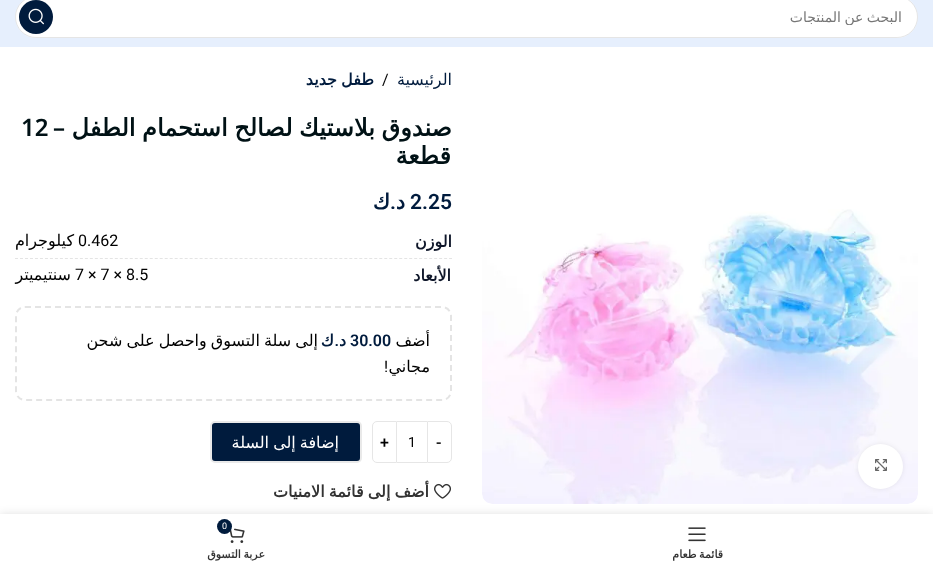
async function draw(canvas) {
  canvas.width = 933
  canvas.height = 569
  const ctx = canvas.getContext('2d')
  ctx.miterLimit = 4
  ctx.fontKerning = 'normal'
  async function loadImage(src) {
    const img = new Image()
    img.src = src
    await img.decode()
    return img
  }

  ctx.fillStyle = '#fff'
  ctx.fillRect(0, 0, 933, 569)
  ctx.fillStyle = '#e6effd'
  ctx.fillRect(0, 0, 933, 47)
  ctx.fillStyle = '#fff'
  ctx.beginPath()
  ctx.roundRect(15, -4, 903, 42, 21)
  ctx.fill()
  ctx.beginPath()
  ctx.roundRect(15.5, -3.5, 902, 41, 20.5)
  ctx.strokeStyle = '#0000001a'
  ctx.stroke()
  ctx.save()
  ctx.beginPath()
  ctx.rect(88, 9, 814, 16)
  ctx.clip()
  ctx.wordSpacing = '-1px'
  ctx.direction = 'rtl'
  ctx.font = '14px DejaVu Sans'
  ctx.fillStyle = '#767676'
  ctx.fillText('البحث عن المنتجات', 902, 22)
  ctx.restore()
  ctx.fillStyle = '#001b3d'
  ctx.beginPath()
  ctx.arc(36, 17, 17, 0, 2 * Math.PI)
  ctx.fill()
  ctx.drawImage(await loadImage('image0.png'), 28, 8, 16, 17)
  ctx.drawImage(await loadImage('image1.png'), 482, 209, 436, 295)
  ctx.fillStyle = '#00000014'
  ctx.filter = 'blur(2.5px)'
  ctx.beginPath()
  ctx.roundRect(858, 444, 45, 45, 22.5)
  ctx.fill()
  ctx.filter = 'none'
  ctx.fillStyle = '#fff'
  ctx.beginPath()
  ctx.arc(880.5, 466.5, 22.5, 0, 2 * Math.PI)
  ctx.fill()
  ctx.drawImage(await loadImage('image2.png'), 875, 459, 12, 12)
  ctx.direction = 'rtl'
  ctx.font = '16px DejaVu Sans'
  ctx.fillStyle = '#001b3d'
  ctx.fillText('الرئيسية', 452, 85)
  ctx.direction = 'ltr'
  ctx.font = '16px Roboto'
  ctx.fillStyle = '#000'
  ctx.fillText('/', 382, 85)
  ctx.wordSpacing = '-1px'
  ctx.direction = 'rtl'
  ctx.font = 'bold 16px DejaVu Sans'
  ctx.fillStyle = '#001b3d'
  ctx.fillText('طفل جديد', 374, 85)
  ctx.font = 'bold 24px DejaVu Sans'
  ctx.fillStyle = '#001115'
  ctx.fillText('صندوق بلاستيك لصالح استحمام الطفل', 452, 136)
  ctx.wordSpacing = '0px'
  ctx.font = '600 24px Noto Sans'
  ctx.fillText('–', 65, 136)
  ctx.direction = 'ltr'
  ctx.fillText('12', 21, 136)
  ctx.direction = 'rtl'
  ctx.font = 'bold 24px DejaVu Sans'
  ctx.fillText('قطعة', 451, 164)
  ctx.direction = 'ltr'
  ctx.font = '600 21px Roboto'
  ctx.fillStyle = '#001b3d'
  ctx.fillText('2.25', 410, 209)
  ctx.direction = 'rtl'
  ctx.font = 'bold 21px DejaVu Sans'
  ctx.fillText('د', 405, 209)
  ctx.font = '600 21px Roboto'
  ctx.fillText('.', 396, 209)
  ctx.font = 'bold 21px DejaVu Sans'
  ctx.fillText('ك', 390, 209)
  ctx.beginPath()
  ctx.moveTo(15, 258.5)
  ctx.lineTo(452, 258.5)
  ctx.strokeStyle = '#e4e4e4'
  ctx.setLineDash([3, 1.99])
  ctx.stroke()
  ctx.font = 'bold 16px DejaVu Sans'
  ctx.fillStyle = '#0f172a'
  ctx.fillText('الوزن', 452, 247)
  ctx.direction = 'ltr'
  ctx.font = '16px Roboto'
  ctx.fillStyle = '#000'
  ctx.fillText('0.462', 78, 246)
  ctx.direction = 'rtl'
  ctx.font = '16px DejaVu Sans'
  ctx.fillText('كيلوجرام', 74, 246)
  ctx.font = 'bold 16px DejaVu Sans'
  ctx.fillStyle = '#0f172a'
  ctx.fillText('الأبعاد', 451, 281)
  ctx.direction = 'ltr'
  ctx.font = '16px Roboto'
  ctx.fillStyle = '#000'
  ctx.fillText('7 × 7 × 8.5', 75, 280)
  ctx.direction = 'rtl'
  ctx.font = '16px DejaVu Sans'
  ctx.fillText('سنتيميتر', 71, 280)
  ctx.beginPath()
  ctx.moveTo(25, 307)
  ctx.lineTo(442, 307)
  ctx.bezierCurveTo(447, 307, 451, 311, 451, 316)
  ctx.lineTo(451, 391)
  ctx.bezierCurveTo(451, 396, 447, 400, 442, 400)
  ctx.lineTo(25, 400)
  ctx.bezierCurveTo(20, 400, 16, 396, 16, 391)
  ctx.lineTo(16, 316)
  ctx.bezierCurveTo(16, 311, 20, 307, 25, 307)
  ctx.closePath()
  ctx.lineWidth = 2
  ctx.setLineDash([6, 4])
  ctx.stroke()
  ctx.fillText('أضف', 430, 346)
  ctx.direction = 'ltr'
  ctx.font = '600 16px Roboto'
  ctx.fillStyle = '#001b3d'
  ctx.fillText('30.00', 350, 346)
  ctx.direction = 'rtl'
  ctx.font = 'bold 16px DejaVu Sans'
  ctx.fillText('د', 346, 346)
  ctx.font = '600 16px Roboto'
  ctx.fillText('.', 339, 346)
  ctx.font = 'bold 16px DejaVu Sans'
  ctx.fillText('ك', 334, 346)
  ctx.wordSpacing = '-1px'
  ctx.font = '16px DejaVu Sans'
  ctx.fillStyle = '#000'
  ctx.fillText('إلى سلة التسوق واحصل على شحن', 318, 346)
  ctx.wordSpacing = '0px'
  ctx.fillText('مجاني', 430, 372)
  ctx.font = '16px Roboto'
  ctx.fillText('!', 388, 372)
  ctx.beginPath()
  ctx.roundRect(427.5, 421.5, 24, 41, [0, 4.5, 4.5, 0])
  ctx.strokeStyle = '#e6e6e6'
  ctx.lineWidth = 1
  ctx.setLineDash([])
  ctx.stroke()
  ctx.direction = 'ltr'
  ctx.font = '500 16px Roboto'
  ctx.fillText('-', 436, 448)
  ctx.fillStyle = '#e6e6e6'
  ctx.fillRect(397, 421, 30, 1)
  ctx.fillRect(397, 462, 30, 1)
  ctx.font = '14px Roboto'
  ctx.fillStyle = '#000'
  ctx.fillText('1', 408, 447)
  ctx.beginPath()
  ctx.roundRect(372.5, 421.5, 24, 41, [4.5, 0, 0, 4.5])
  ctx.stroke()
  ctx.font = '500 16px Roboto'
  ctx.fillText('+', 380, 448)
  ctx.fillStyle = '#001b3d'
  ctx.beginPath()
  ctx.roundRect(211, 422, 150, 40, 4)
  ctx.fill()
  ctx.strokeStyle = '#e9e9e9'
  ctx.lineWidth = 2
  ctx.stroke()
  ctx.wordSpacing = '-1px'
  ctx.direction = 'rtl'
  ctx.font = '16px DejaVu Sans'
  ctx.fillStyle = '#fff'
  ctx.fillText('إضافة إلى السلة', 339, 448)
  ctx.beginPath()
  ctx.moveTo(280, 448)
  ctx.bezierCurveTo(276.5, 444.5, 276.5, 439.5, 280, 436)
  ctx.strokeStyle = '#001b3d'
  ctx.lineWidth = 1
  ctx.stroke()
  ctx.drawImage(await loadImage('image3.png'), 434, 483, 17, 16)
  ctx.font = 'bold 16px DejaVu Sans'
  ctx.fillStyle = '#333'
  ctx.fillText('أضف إلى قائمة الامنيات', 429, 497)
  ctx.fillStyle = '#0000001f'
  ctx.filter = 'blur(4.5px)'
  ctx.beginPath()
  ctx.rect(0, 514, 933, 55)
  ctx.fill()
  ctx.filter = 'none'
  ctx.fillStyle = '#fff'
  ctx.fillRect(0, 514, 933, 55)
  ctx.drawImage(await loadImage('image4.png'), 688, 527, 18, 15)
  ctx.font = 'bold 11px DejaVu Sans'
  ctx.fillStyle = '#333'
  ctx.fillText('قائمة طعام', 723, 558)
  ctx.drawImage(await loadImage('image5.png'), 229, 528, 16, 15)
  ctx.fillStyle = '#001b3d'
  ctx.beginPath()
  ctx.arc(224.5, 526.5, 7.5, 0, 2 * Math.PI)
  ctx.fill()
  ctx.wordSpacing = '0px'
  ctx.direction = 'ltr'
  ctx.font = '9px Roboto'
  ctx.fillStyle = '#fff'
  ctx.fillText('0', 222, 529)
  ctx.wordSpacing = '-1px'
  ctx.direction = 'rtl'
  ctx.font = 'bold 11px DejaVu Sans'
  ctx.fillStyle = '#333'
  ctx.fillText('عربة التسوق', 265, 558)
}

draw(document.querySelector('canvas'))
